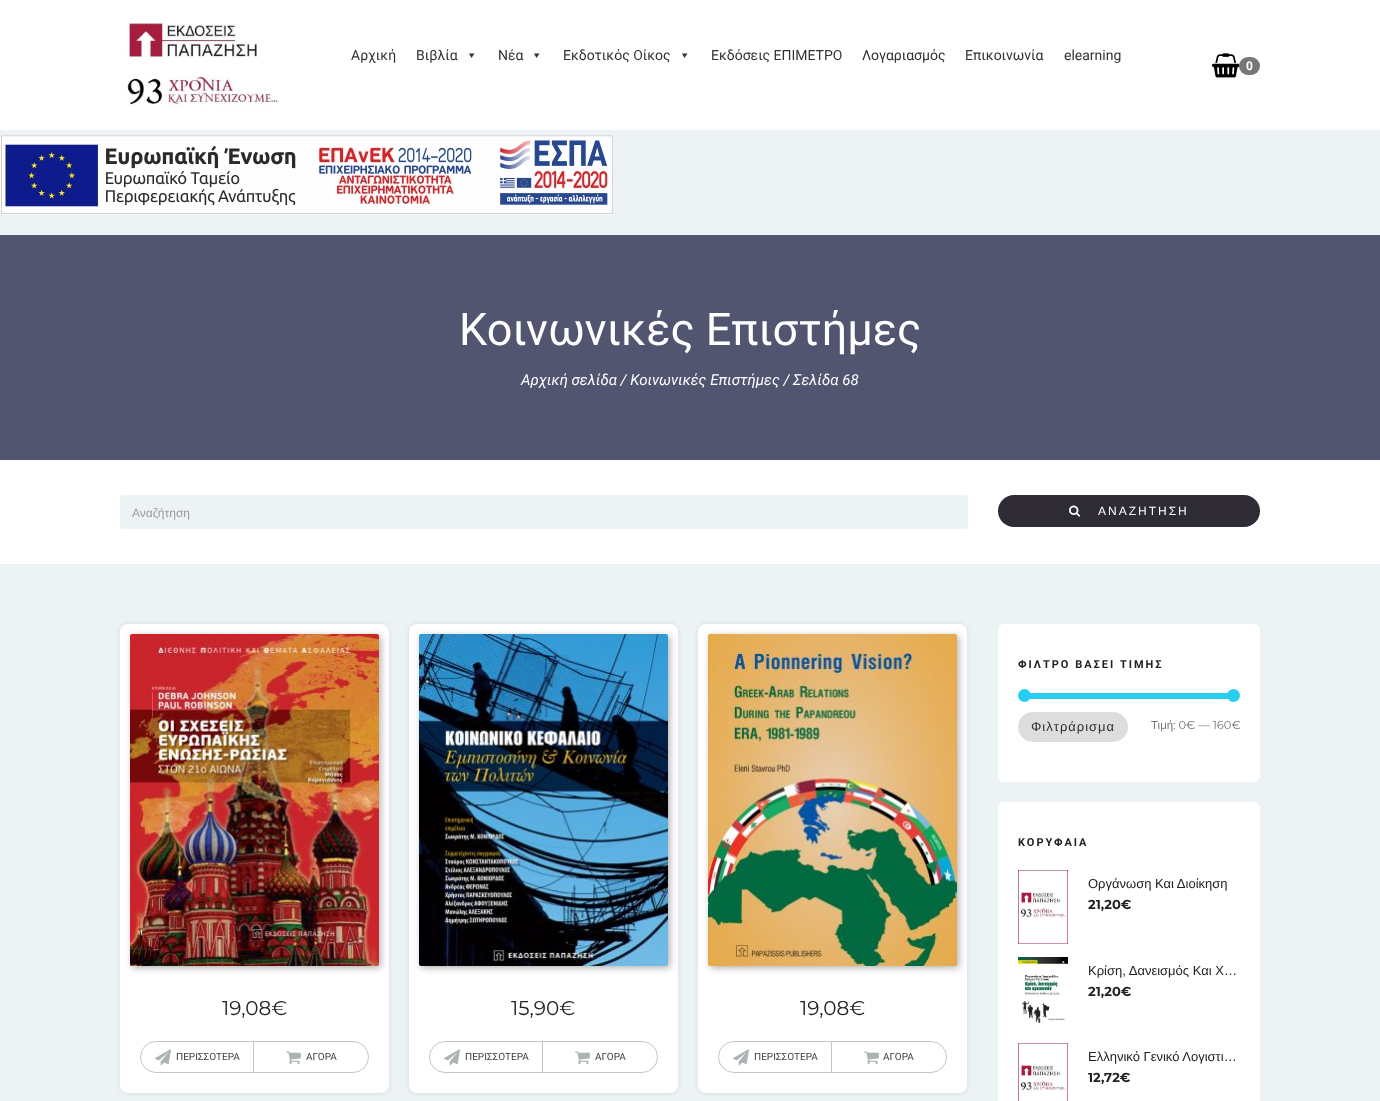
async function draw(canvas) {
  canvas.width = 1380
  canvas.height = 1101
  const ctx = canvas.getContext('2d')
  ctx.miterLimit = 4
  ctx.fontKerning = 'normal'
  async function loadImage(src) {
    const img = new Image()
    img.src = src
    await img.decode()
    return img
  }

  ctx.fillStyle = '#edf3f4'
  ctx.fillRect(0, 0, 1380, 1101)
  ctx.fillStyle = '#fff'
  ctx.fillRect(0, 0, 1380, 130)
  ctx.drawImage(await loadImage('image0.png'), 126, 22, 154, 84)
  ctx.font = '14px Roboto'
  ctx.fillStyle = '#333'
  ctx.fillText('Αρχική', 351, 60)
  ctx.fillText('Βιβλία', 416, 60)
  ctx.beginPath()
  ctx.moveTo(474.5, 53.5)
  ctx.lineTo(471.5, 58)
  ctx.lineTo(469, 53.5)
  ctx.closePath()
  ctx.fill()
  ctx.fillText('Νέα', 498, 60)
  ctx.beginPath()
  ctx.moveTo(539.5, 53.5)
  ctx.lineTo(536.5, 58)
  ctx.lineTo(534, 53.5)
  ctx.closePath()
  ctx.fill()
  ctx.fillText('Εκδοτικός Οίκος', 563, 60)
  ctx.beginPath()
  ctx.moveTo(687.5, 53.5)
  ctx.lineTo(684.5, 58)
  ctx.lineTo(682, 53.5)
  ctx.closePath()
  ctx.fill()
  ctx.fillText('Εκδόσεις ΕΠΙΜΕΤΡΟ', 711, 60)
  ctx.fillText('Λογαριασμός', 862, 60)
  ctx.fillText('Επικοινωνία', 965, 60)
  ctx.fillText('elearning', 1064, 60)
  ctx.drawImage(await loadImage('image1.png'), 1212, 53, 28, 25)
  ctx.fillStyle = '#777'
  ctx.beginPath()
  ctx.roundRect(1239, 57, 21, 18, 9)
  ctx.fill()
  ctx.font = 'bold 12px Roboto'
  ctx.fillStyle = '#fff'
  ctx.fillText('0', 1246, 70)
  ctx.drawImage(await loadImage('image2.png'), 0, 135, 613, 80)
  ctx.fillStyle = '#515570'
  ctx.fillRect(0, 235, 1380, 225)
  ctx.font = '45px Roboto'
  ctx.fillStyle = '#fff'
  ctx.fillText('Κοινωνικές Επιστήμες', 459, 345)
  ctx.font = 'italic 15px Roboto'
  ctx.fillText('Αρχική σελίδα / Κοινωνικές Επιστήμες / Σελίδα 68', 521, 385)
  ctx.fillRect(0, 460, 1380, 104)
  ctx.fillStyle = '#edf3f4'
  ctx.beginPath()
  ctx.roundRect(120, 495, 848, 34, 4)
  ctx.fill()
  ctx.font = '12px Liberation Sans'
  ctx.fillStyle = '#999'
  ctx.fillText('Αναζήτηση', 132, 517)
  ctx.fillStyle = '#2f2b35'
  ctx.beginPath()
  ctx.roundRect(998, 495, 262, 32, 16)
  ctx.fill()
  ctx.drawImage(await loadImage('image3.png'), 1069, 505, 12, 12)
  ctx.letterSpacing = '2px'
  ctx.fillStyle = '#fff'
  ctx.fillText('ΑΝΑΖΗΤΗΣΗ', 1098, 515)
  ctx.fillStyle = '#0000001a'
  ctx.filter = 'blur(2.5px)'
  ctx.beginPath()
  ctx.roundRect(120, 624, 269, 469, 8)
  ctx.fill()
  ctx.filter = 'none'
  ctx.fillStyle = '#fff'
  ctx.beginPath()
  ctx.roundRect(120, 624, 269, 469, 8)
  ctx.fill()
  ctx.fillStyle = '#0000004d'
  ctx.filter = 'blur(3.5px)'
  ctx.beginPath()
  ctx.roundRect(132, 636, 249, 332, 2)
  ctx.fill()
  ctx.filter = 'none'
  ctx.drawImage(await loadImage('image4.png'), 130, 634, 249, 332)
  ctx.letterSpacing = '0px'
  ctx.font = '20px Montserrat'
  ctx.fillStyle = '#222'
  ctx.fillText('19,08€', 222, 1015)
  ctx.beginPath()
  ctx.roundRect(140.5, 1041.5, 228, 31, 15.5)
  ctx.strokeStyle = '#bfc7c8'
  ctx.stroke()
  ctx.fillStyle = '#bfc7c8'
  ctx.fillRect(253, 1042, 1, 30)
  ctx.drawImage(await loadImage('image5.png'), 155, 1049, 16, 17)
  ctx.font = '10px Roboto'
  ctx.fillStyle = '#3c3d41'
  ctx.fillText('ΠΕΡΙΣΣΟΤΕΡΑ', 176, 1060)
  ctx.drawImage(await loadImage('image6.png'), 286, 1051, 15, 14)
  ctx.fillText('ΑΓΟΡΑ', 306, 1060)
  ctx.fillStyle = '#0000001a'
  ctx.filter = 'blur(2.5px)'
  ctx.beginPath()
  ctx.roundRect(409, 624, 269, 469, 8)
  ctx.fill()
  ctx.filter = 'none'
  ctx.fillStyle = '#fff'
  ctx.beginPath()
  ctx.roundRect(409, 624, 269, 469, 8)
  ctx.fill()
  ctx.fillStyle = '#0000004d'
  ctx.filter = 'blur(3.5px)'
  ctx.beginPath()
  ctx.roundRect(421, 636, 249, 332, 2)
  ctx.fill()
  ctx.filter = 'none'
  ctx.drawImage(await loadImage('image7.png'), 419, 634, 249, 332)
  ctx.font = '20px Montserrat'
  ctx.fillStyle = '#222'
  ctx.fillText('15,90€', 511, 1015)
  ctx.beginPath()
  ctx.roundRect(429.5, 1041.5, 228, 31, 15.5)
  ctx.stroke()
  ctx.fillStyle = '#bfc7c8'
  ctx.fillRect(542, 1042, 1, 30)
  ctx.drawImage(await loadImage('image5.png'), 444, 1049, 16, 17)
  ctx.font = '10px Roboto'
  ctx.fillStyle = '#3c3d41'
  ctx.fillText('ΠΕΡΙΣΣΟΤΕΡΑ', 465, 1060)
  ctx.drawImage(await loadImage('image6.png'), 575, 1051, 15, 14)
  ctx.fillText('ΑΓΟΡΑ', 595, 1060)
  ctx.fillStyle = '#0000001a'
  ctx.filter = 'blur(2.5px)'
  ctx.beginPath()
  ctx.roundRect(698, 624, 269, 469, 8)
  ctx.fill()
  ctx.filter = 'none'
  ctx.fillStyle = '#fff'
  ctx.beginPath()
  ctx.roundRect(698, 624, 269, 469, 8)
  ctx.fill()
  ctx.fillStyle = '#0000004d'
  ctx.filter = 'blur(3.5px)'
  ctx.beginPath()
  ctx.roundRect(710, 636, 249, 332, 2)
  ctx.fill()
  ctx.filter = 'none'
  ctx.drawImage(await loadImage('image8.png'), 708, 634, 249, 332)
  ctx.font = '20px Montserrat'
  ctx.fillStyle = '#222'
  ctx.fillText('19,08€', 800, 1015)
  ctx.beginPath()
  ctx.roundRect(718.5, 1041.5, 228, 31, 15.5)
  ctx.stroke()
  ctx.fillStyle = '#bfc7c8'
  ctx.fillRect(831, 1042, 1, 30)
  ctx.drawImage(await loadImage('image5.png'), 733, 1049, 16, 17)
  ctx.font = '10px Roboto'
  ctx.fillStyle = '#3c3d41'
  ctx.fillText('ΠΕΡΙΣΣΟΤΕΡΑ', 754, 1060)
  ctx.drawImage(await loadImage('image6.png'), 864, 1051, 15, 14)
  ctx.fillText('ΑΓΟΡΑ', 883, 1060)
  ctx.fillStyle = '#fff'
  ctx.beginPath()
  ctx.roundRect(998, 624, 262, 158, 6)
  ctx.fill()
  ctx.letterSpacing = '2px'
  ctx.font = 'bold 11px Roboto'
  ctx.fillStyle = '#222'
  ctx.fillText('ΦΙΛΤΡΟ ΒΑΣΕΙ ΤΙΜΗΣ', 1018, 668)
  ctx.fillStyle = '#28cdf0'
  ctx.fillRect(1024, 693, 210, 6)
  ctx.beginPath()
  ctx.arc(1024.5, 695.5, 6.5, 0, 2 * Math.PI)
  ctx.fill()
  ctx.beginPath()
  ctx.arc(1233.5, 695.5, 6.5, 0, 2 * Math.PI)
  ctx.fill()
  ctx.fillStyle = '#ddd'
  ctx.beginPath()
  ctx.roundRect(1018, 712, 110, 30, 15)
  ctx.fill()
  ctx.letterSpacing = '1px'
  ctx.font = '13px Liberation Sans'
  ctx.fillStyle = '#2f2b35'
  ctx.fillText('Φιλτράρισμα', 1031, 731)
  ctx.letterSpacing = '0px'
  ctx.font = '11.5px Liberation Sans'
  ctx.fillStyle = '#757575'
  ctx.fillText('Τιμή', 1151, 729)
  ctx.font = '11.5px Montserrat'
  ctx.fillText(': 0€ — 160€', 1173, 729)
  ctx.fillStyle = '#fff'
  ctx.beginPath()
  ctx.roundRect(998, 802, 262, 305, 6)
  ctx.fill()
  ctx.letterSpacing = '2px'
  ctx.font = 'bold 11px Roboto'
  ctx.fillStyle = '#222'
  ctx.fillText('ΚΟΡΥΦΑΙΑ', 1018, 846)
  ctx.drawImage(await loadImage('image9.png'), 1018, 870, 50, 74)
  ctx.letterSpacing = '0px'
  ctx.font = '13px Liberation Sans'
  ctx.fillText('Οργάνωση Και Διοίκηση', 1088, 888)
  ctx.font = 'bold 13px Montserrat'
  ctx.fillText('21,20€', 1088, 909)
  ctx.drawImage(await loadImage('image10.png'), 1018, 957, 50, 66)
  ctx.font = '13px Liberation Sans'
  ctx.fillText('Κρίση, Δανεισμός Και Χ…', 1088, 975)
  ctx.font = 'bold 13px Montserrat'
  ctx.fillText('21,20€', 1088, 996)
  ctx.drawImage(await loadImage('image11.png'), 1018, 1043, 50, 58)
  ctx.font = '13px Liberation Sans'
  ctx.fillText('Ελληνικό Γενικό Λογιστι…', 1088, 1061)
  ctx.font = 'bold 13px Montserrat'
  ctx.fillText('12,72€', 1088, 1082)
}

draw(document.querySelector('canvas'))
